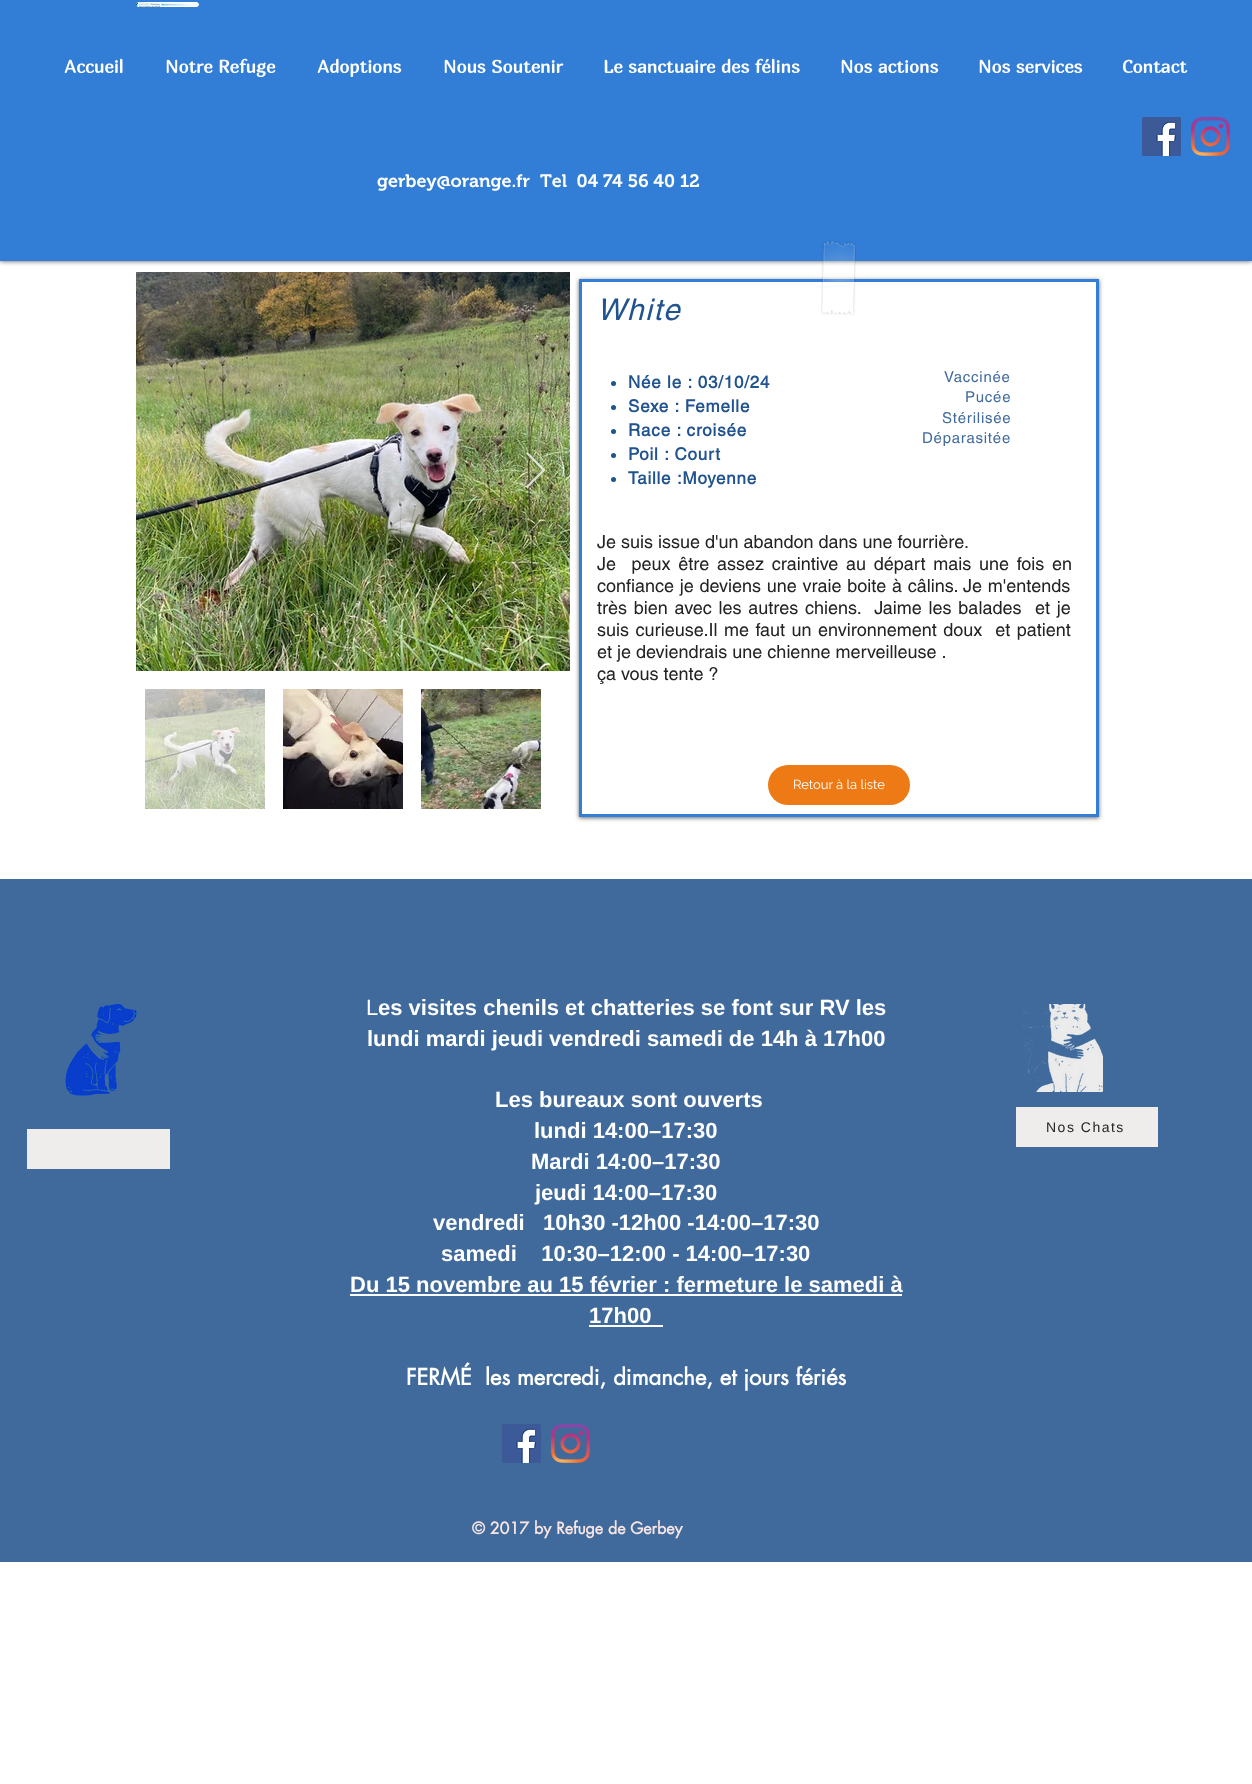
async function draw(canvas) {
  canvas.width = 1252
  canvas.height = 1784
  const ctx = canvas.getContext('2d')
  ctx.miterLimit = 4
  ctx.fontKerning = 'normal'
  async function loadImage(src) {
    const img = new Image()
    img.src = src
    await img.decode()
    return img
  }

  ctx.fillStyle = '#fff'
  ctx.fillRect(0, 0, 1252, 1784)
  ctx.fillStyle = '#000000b3'
  ctx.filter = 'blur(2.5px)'
  ctx.beginPath()
  ctx.rect(0, 0, 1252, 261)
  ctx.fill()
  ctx.filter = 'none'
  ctx.fillStyle = '#327dd5'
  ctx.fillRect(0, 0, 1252, 261)
  ctx.drawImage(await loadImage('image0.png'), 136, 2, 63, 5)
  ctx.font = 'bold 18px Marmelad'
  ctx.fillStyle = '#fffffe'
  ctx.fillText('Accueil', 64, 73)
  ctx.fillText('Notre Refuge', 165, 73)
  ctx.fillText('Adoptions', 317, 73)
  ctx.fillText('Nous Soutenir', 443, 73)
  ctx.fillText('Le sanctuaire des félins', 603, 73)
  ctx.fillText('Nos actions', 840, 73)
  ctx.fillText('Nos services', 978, 73)
  ctx.fillText('Contact', 1122, 73)
  ctx.drawImage(await loadImage('image1.png'), 1142, 117, 39, 39)
  ctx.drawImage(await loadImage('image2.png'), 1191, 117, 39, 39)
  ctx.font = '600 18px "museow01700"'
  ctx.fillText('gerbey@orange.fr', 377, 187)
  ctx.fillText('Tel  04 74 56 40 12', 540, 187)
  ctx.drawImage(await loadImage('image3.png'), 136, 272, 434, 399)
  ctx.fillStyle = '#eeedebe6'
  ctx.beginPath()
  ctx.moveTo(526, 453.5)
  ctx.lineTo(527.5, 452)
  ctx.lineTo(545.5, 470)
  ctx.lineTo(527.5, 488)
  ctx.lineTo(526, 486.5)
  ctx.lineTo(542.5, 470)
  ctx.closePath()
  ctx.fill()
  ctx.drawImage(await loadImage('image4.png'), 145, 689, 120, 120)
  ctx.drawImage(await loadImage('image5.png'), 283, 689, 120, 120)
  ctx.drawImage(await loadImage('image6.png'), 421, 689, 120, 120)
  ctx.save()
  ctx.beginPath()
  ctx.moveTo(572, 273)
  ctx.lineTo(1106, 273)
  ctx.lineTo(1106, 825)
  ctx.lineTo(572, 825)
  ctx.closePath()
  ctx.moveTo(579, 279)
  ctx.lineTo(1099, 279)
  ctx.lineTo(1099, 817)
  ctx.lineTo(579, 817)
  ctx.closePath()
  ctx.clip('evenodd')
  ctx.fillStyle = '#00000099'
  ctx.filter = 'blur(2px)'
  ctx.beginPath()
  ctx.rect(579, 280, 520, 538)
  ctx.fill()
  ctx.filter = 'none'
  ctx.restore()
  ctx.strokeStyle = '#327dd5'
  ctx.lineWidth = 3
  ctx.strokeRect(580.5, 280.5, 517, 535)
  ctx.drawImage(await loadImage('image7.png'), 821, 240, 35, 75)
  ctx.letterSpacing = '1.5px'
  ctx.font = 'italic 30px helvetica'
  ctx.fillStyle = '#21538e'
  ctx.fillText('White', 597, 320)
  ctx.beginPath()
  ctx.arc(613.5, 383.5, 2.5, 0, 2 * Math.PI)
  ctx.fill()
  ctx.letterSpacing = '0.8px'
  ctx.font = 'bold 17px helvetica'
  ctx.fillText('Née le : 03/10/24', 628, 388)
  ctx.beginPath()
  ctx.arc(613.5, 407.5, 2.5, 0, 2 * Math.PI)
  ctx.fill()
  ctx.fillText('Sexe : Femelle', 628, 412)
  ctx.beginPath()
  ctx.arc(613.5, 431.5, 2.5, 0, 2 * Math.PI)
  ctx.fill()
  ctx.fillText('Race : croisée', 628, 436)
  ctx.beginPath()
  ctx.arc(613.5, 455.5, 2.5, 0, 2 * Math.PI)
  ctx.fill()
  ctx.fillText('Poil : Court', 628, 460)
  ctx.beginPath()
  ctx.arc(613.5, 479.5, 2.5, 0, 2 * Math.PI)
  ctx.fill()
  ctx.fillText('Taille :Moyenne', 628, 484)
  ctx.letterSpacing = '0.75px'
  ctx.font = '15px helvetica'
  ctx.fillStyle = '#406a9c'
  ctx.fillText('Vaccinée', 944, 382)
  ctx.fillText('Pucée', 965, 402)
  ctx.fillText('Stérilisée', 942, 423)
  ctx.fillText('Déparasitée', 922, 443)
  ctx.letterSpacing = '0px'
  ctx.font = '18px helvetica'
  ctx.fillStyle = '#242323'
  ctx.fillText('Je suis issue d\'un abandon dans une fourrière.', 597, 548)
  ctx.wordSpacing = '2.75px'
  ctx.fillText('Je  peux être assez craintive au départ mais une fois en', 597, 570)
  ctx.wordSpacing = '0.75px'
  ctx.fillText('confiance je deviens une vraie boite à câlins. Je m\'entends', 597, 592)
  ctx.wordSpacing = '1.75px'
  ctx.fillText('très bien avec les autres chiens.  Jaime les balades  et je', 597, 614)
  ctx.wordSpacing = '1.5px'
  ctx.fillText('suis curieuse.Il me faut un environnement doux  et patient', 597, 636)
  ctx.wordSpacing = '0px'
  ctx.fillText('et je deviendrais une chienne merveilleuse .', 597, 658)
  ctx.fillText('ça vous tente ?', 597, 680)
  ctx.fillStyle = '#ed7a15'
  ctx.beginPath()
  ctx.roundRect(768, 765, 142, 40, 20)
  ctx.fill()
  ctx.font = '13px Raleway'
  ctx.fillStyle = '#fffffe'
  ctx.fillText('Retour à la liste', 793, 789)
  ctx.fillStyle = '#406a9c'
  ctx.fillRect(0, 879, 1252, 683)
  ctx.drawImage(await loadImage('image8.png'), 65, 1004, 72, 92)
  ctx.font = '22px Liberation Sans'
  ctx.fillStyle = '#fffffe'
  ctx.fillText('L', 366, 1015)
  ctx.font = 'bold 22px Liberation Sans'
  ctx.fillText('es visites chenils et chatteries se font sur RV les', 378, 1015)
  ctx.fillText('lundi mardi jeudi vendredi samedi de 14h à 17h00', 367, 1046)
  ctx.fillText('Les bureaux sont ouverts', 495, 1107)
  ctx.fillText('lundi 14:00–17:30', 534, 1138)
  ctx.fillText('Mardi 14:00–17:30', 531, 1169)
  ctx.fillText('jeudi 14:00–17:30', 535, 1200)
  ctx.fillText('vendredi   10h30 -12h00 -14:00–17:30', 433, 1230)
  ctx.fillText('samedi    10:30–12:00 - 14:00–17:30', 441, 1261)
  ctx.fillText('Du 15 novembre au 15 février : fermeture le samedi à', 350, 1292)
  ctx.fillStyle = '#fff'
  ctx.fillRect(350, 1294, 552, 2)
  ctx.fillStyle = '#fffffe'
  ctx.fillText('17h00', 589, 1323)
  ctx.fillStyle = '#fff'
  ctx.fillRect(589, 1325, 74, 2)
  ctx.font = 'bold 22px futura'
  ctx.fillStyle = '#fffffe'
  ctx.fillText('FERMÉ', 406, 1385)
  ctx.fillText('les mercredi, dimanche, et jours fériés', 485, 1385)
  ctx.drawImage(await loadImage('image9.png'), 1023, 1004, 80, 88)
  ctx.fillStyle = '#eeedeb'
  ctx.fillRect(1016, 1107, 142, 40)
  ctx.letterSpacing = '1.5px'
  ctx.font = '14px Liberation Sans'
  ctx.fillStyle = '#242323'
  ctx.fillText('Nos Chats', 1046, 1132)
  ctx.fillStyle = '#eeedeb'
  ctx.fillRect(27, 1129, 143, 40)
  ctx.drawImage(await loadImage('image10.png'), 502, 1424, 39, 39)
  ctx.drawImage(await loadImage('image11.png'), 551, 1424, 39, 39)
  ctx.letterSpacing = '0px'
  ctx.font = 'bold 16px futura'
  ctx.fillStyle = '#f9e6e4'
  ctx.fillText('© 2017 by Refuge de Gerbey', 472, 1534)
}

draw(document.querySelector('canvas'))
